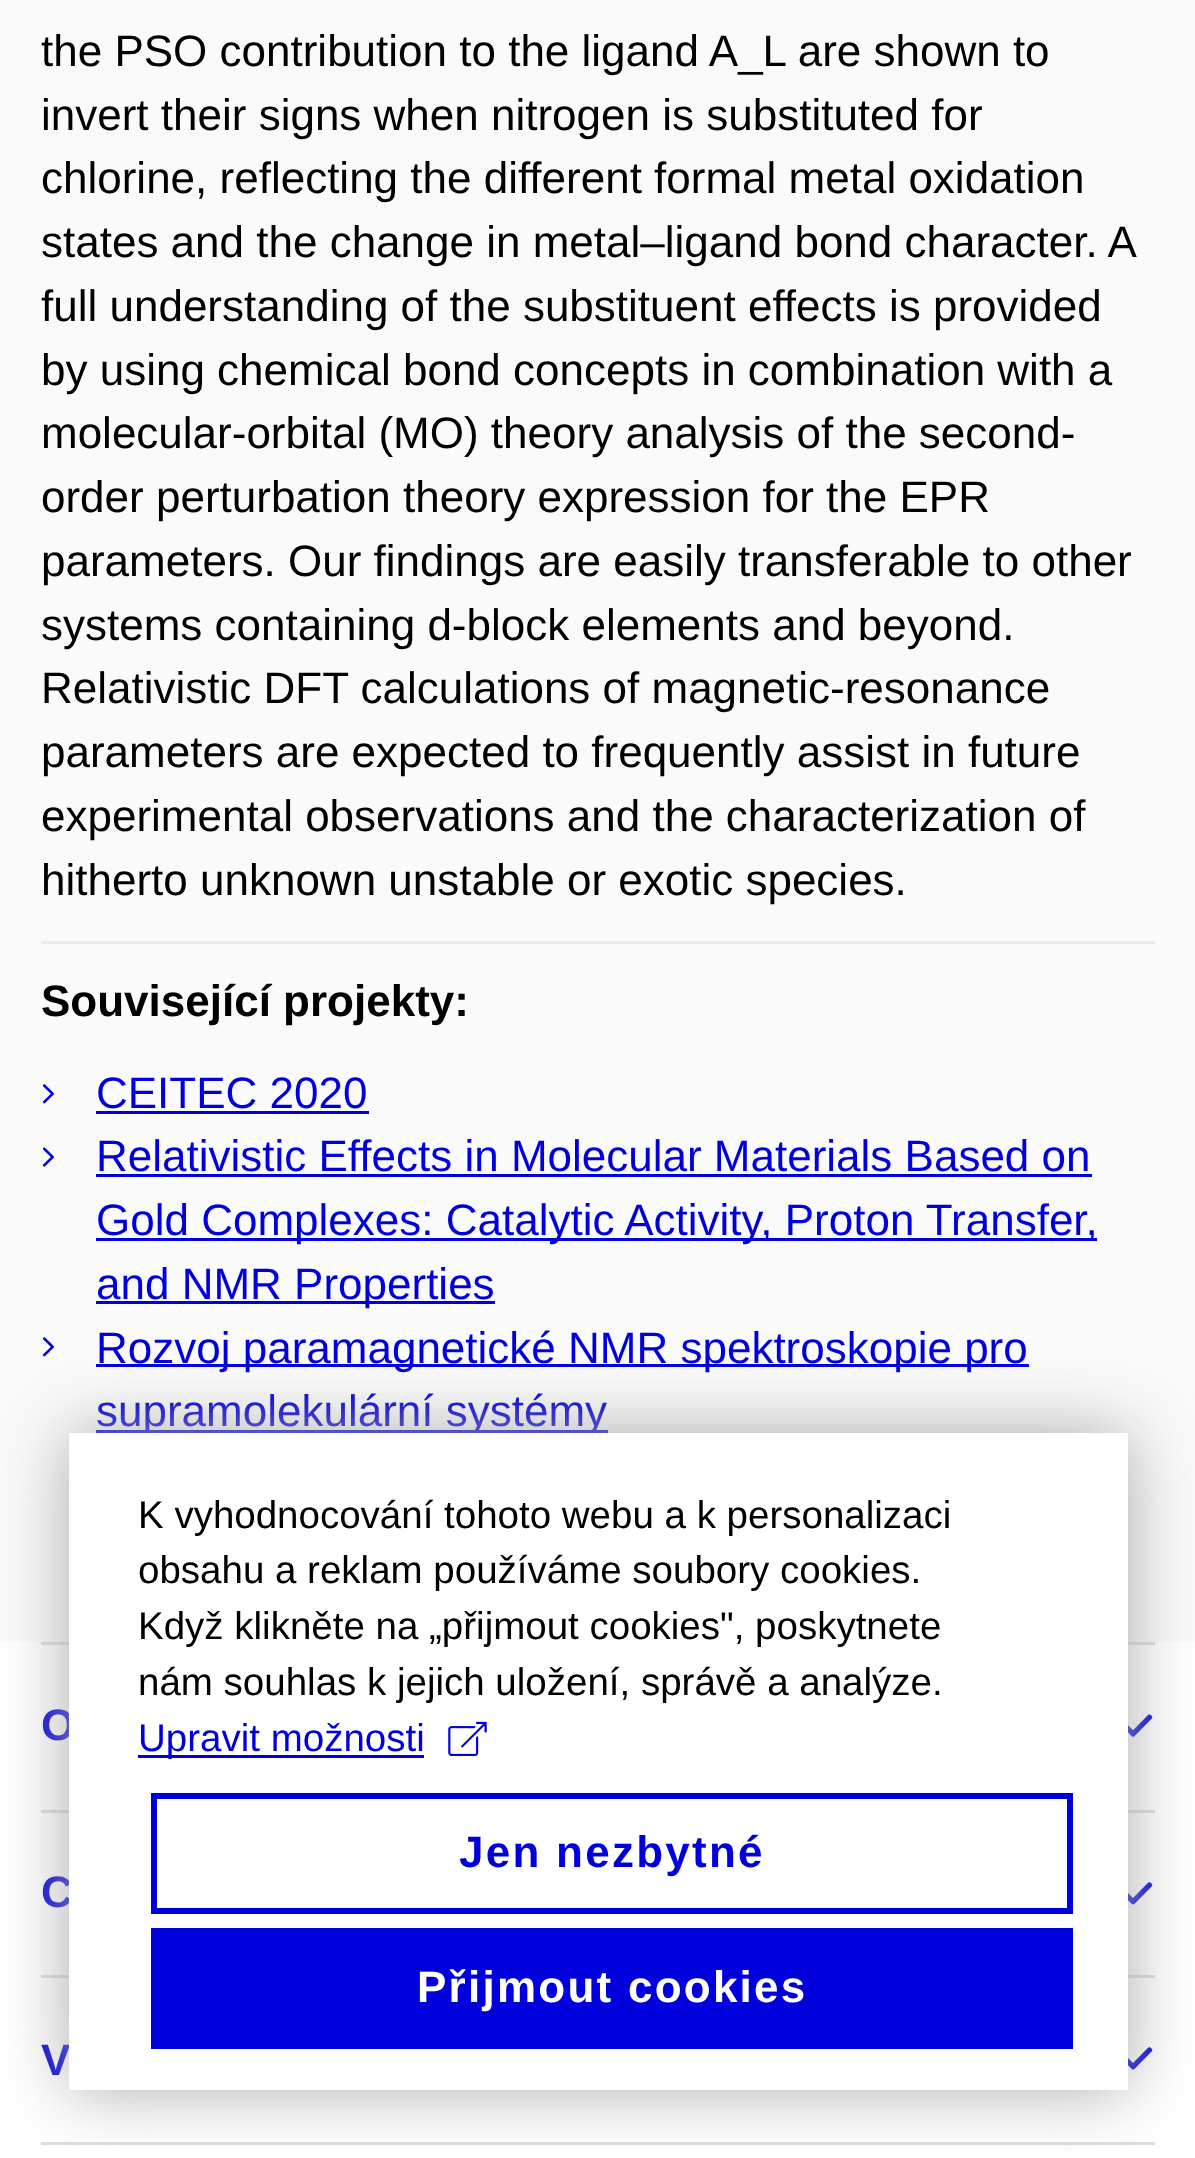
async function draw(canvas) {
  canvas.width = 1195
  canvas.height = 2158
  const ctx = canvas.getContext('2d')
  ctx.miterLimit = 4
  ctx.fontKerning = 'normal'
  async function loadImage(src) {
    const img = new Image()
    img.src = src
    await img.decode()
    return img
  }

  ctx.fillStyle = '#fafafa'
  ctx.fillRect(0, 0, 1195, 2158)
  ctx.fillStyle = '#ebebeb'
  ctx.fillRect(41, 941, 1114, 3)
  ctx.font = '44px Liberation Sans'
  ctx.fillStyle = '#000'
  ctx.fillText('the PSO contribution to the ligand A_L are shown to', 41, 66)
  ctx.fillText('invert their signs when nitrogen is substituted for', 41, 130)
  ctx.fillText('chlorine, reflecting the different formal metal oxidation', 41, 193)
  ctx.fillText('states and the change in metal–ligand bond character. A', 41, 257)
  ctx.fillText('full understanding of the substituent effects is provided', 41, 321)
  ctx.fillText('by using chemical bond concepts in combination with a', 41, 385)
  ctx.fillText('molecular-orbital (MO) theory analysis of the second-', 41, 448)
  ctx.fillText('order perturbation theory expression for the EPR', 41, 512)
  ctx.fillText('parameters. Our findings are easily transferable to other', 41, 576)
  ctx.fillText('systems containing d-block elements and beyond.', 41, 640)
  ctx.fillText('Relativistic DFT calculations of magnetic-resonance', 41, 703)
  ctx.fillText('parameters are expected to frequently assist in future', 41, 767)
  ctx.fillText('experimental observations and the characterization of', 41, 831)
  ctx.fillText('hitherto unknown unstable or exotic species.', 41, 895)
  ctx.font = 'bold 44px Liberation Sans'
  ctx.fillText('Související projekty:', 41, 1016)
  ctx.drawImage(await loadImage('image0.png'), 42, 1084, 12, 20)
  ctx.font = '44px Liberation Sans'
  ctx.fillStyle = '#0000dc'
  ctx.fillText('CEITEC 2020', 96, 1108)
  ctx.fillRect(96, 1111, 273, 3)
  ctx.drawImage(await loadImage('image1.png'), 42, 1147, 12, 20)
  ctx.fillText('Relativistic Effects in Molecular Materials Based on', 96, 1171)
  ctx.fillRect(96, 1174, 996, 3)
  ctx.fillRect(96, 1238, 1001, 3)
  ctx.fillText('Gold Complexes: Catalytic Activity, Proton Transfer,', 96, 1235)
  ctx.fillRect(96, 1301, 399, 3)
  ctx.fillText('and NMR Properties', 96, 1299)
  ctx.drawImage(await loadImage('image0.png'), 42, 1337, 12, 20)
  ctx.fillRect(96, 1364, 933, 3)
  ctx.fillText('Rozvoj paramagnetické NMR spektroskopie pro', 96, 1363)
  ctx.fillRect(96, 1430, 512, 3)
  ctx.fillText('supramolekulární systémy', 96, 1426)
  ctx.fillStyle = '#fff'
  ctx.fillRect(0, 1642, 1195, 516)
  ctx.fillStyle = '#ddd'
  ctx.fillRect(41, 1642, 1114, 3)
  ctx.font = 'bold 44px Liberation Sans'
  ctx.fillStyle = '#0000dc'
  ctx.fillText('O', 41, 1740)
  ctx.drawImage(await loadImage('image2.png'), 1128, 1714, 25, 23)
  ctx.fillStyle = '#ddd'
  ctx.fillRect(41, 1810, 1114, 3)
  ctx.fillStyle = '#0000dc'
  ctx.fillText('C', 41, 1907)
  ctx.drawImage(await loadImage('image3.png'), 1128, 1882, 25, 23)
  ctx.fillStyle = '#ddd'
  ctx.fillRect(41, 1975, 1114, 3)
  ctx.fillStyle = '#0000dc'
  ctx.fillText('V', 41, 2075)
  ctx.drawImage(await loadImage('image3.png'), 1128, 2047, 25, 23)
  ctx.fillStyle = '#ddd'
  ctx.fillRect(41, 2142, 1114, 3)
  ctx.fillStyle = '#aaa'
  ctx.filter = 'blur(34.5px)'
  ctx.beginPath()
  ctx.rect(69, 1433, 1059, 657)
  ctx.fill()
  ctx.filter = 'none'
  ctx.fillStyle = '#fff'
  ctx.fillRect(69, 1433, 1059, 657)
  ctx.font = '38.5px Liberation Sans'
  ctx.fillStyle = '#000'
  ctx.fillText('K vyhodnocování tohoto webu a k personalizaci', 138, 1528)
  ctx.fillText('obsahu a reklam používáme soubory cookies.', 138, 1583)
  ctx.fillText('Když klikněte na „přijmout cookies", poskytnete', 138, 1639)
  ctx.fillText('nám souhlas k jejich uložení, správě a analýze.', 138, 1695)
  ctx.fillStyle = '#0000dc'
  ctx.fillRect(138, 1755, 286, 3)
  ctx.fillText('Upravit možnosti', 138, 1751)
  ctx.drawImage(await loadImage('image4.png'), 448, 1721, 39, 35)
  ctx.strokeStyle = '#0000dc'
  ctx.lineWidth = 6
  ctx.strokeRect(154, 1796, 916, 115)
  ctx.letterSpacing = '2.25px'
  ctx.font = 'bold 44px Liberation Sans'
  ctx.fillText('Jen nezbytné', 459, 1867)
  ctx.fillRect(151, 1928, 922, 121)
  ctx.fillStyle = '#fff'
  ctx.fillText('Přijmout cookies', 417, 2002)
}

draw(document.querySelector('canvas'))
